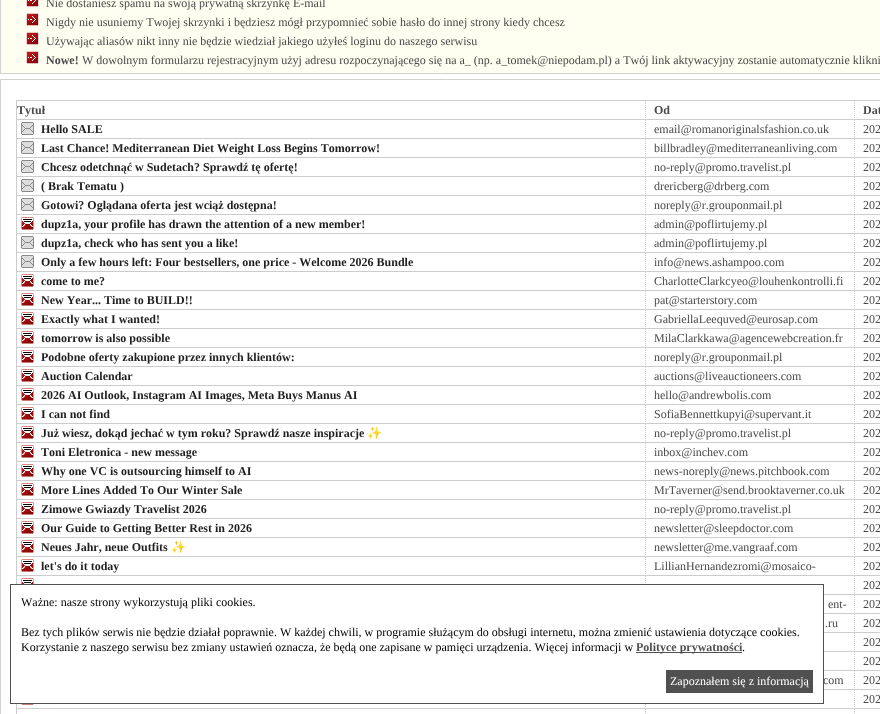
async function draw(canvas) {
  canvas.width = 880
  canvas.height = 714
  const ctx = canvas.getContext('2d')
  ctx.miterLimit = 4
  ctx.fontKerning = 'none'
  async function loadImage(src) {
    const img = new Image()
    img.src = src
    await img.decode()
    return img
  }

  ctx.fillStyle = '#fff'
  ctx.fillRect(0, 0, 880, 714)
  ctx.fillStyle = '#fffff1'
  ctx.beginPath()
  ctx.rect(0.5, -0.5, 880, 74)
  ctx.fill()
  ctx.strokeStyle = '#d2d2d2'
  ctx.stroke()
  ctx.drawImage(await loadImage('image0.png'), 26, 0, 13, 7)
  ctx.font = '12px Liberation Serif'
  ctx.fillStyle = '#494949'
  ctx.fillText('Nie dostaniesz spamu na swoją prywatną skrzynkę E-mail', 46, 7)
  ctx.drawImage(await loadImage('image1.png'), 26, 13, 13, 13)
  ctx.fillText('Nigdy nie usuniemy Twojej skrzynki i będziesz mógł przypomnieć sobie hasło do innej strony kiedy chcesz', 46, 26)
  ctx.drawImage(await loadImage('image1.png'), 26, 32, 13, 13)
  ctx.fillText('Używając aliasów nikt inny nie będzie wiedział jakiego użyłeś loginu do naszego serwisu', 46, 45)
  ctx.drawImage(await loadImage('image1.png'), 26, 51, 13, 13)
  ctx.font = 'bold 12px Liberation Serif'
  ctx.fillText('Nowe!', 46, 64)
  ctx.font = '12px Liberation Serif'
  ctx.fillText('W dowolnym formularzu rejestracyjnym użyj adresu rozpoczynającego się na a_ (np. a_tomek@niepodam.pl) a Twój link aktywacyjny zostanie automatycznie klikni', 82, 64)
  ctx.strokeRect(0.5, 79.5, 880, 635)
  ctx.fillStyle = '#ccc'
  ctx.fillRect(16, 100, 864, 1)
  ctx.beginPath()
  ctx.moveTo(645.5, 101)
  ctx.lineTo(645.5, 119)
  ctx.strokeStyle = '#ccc'
  ctx.setLineDash([1, 1])
  ctx.stroke()
  ctx.fillRect(16, 101, 1, 18)
  ctx.font = 'bold 12px Liberation Serif'
  ctx.fillStyle = '#494949'
  ctx.fillText('Tytuł', 17, 114)
  ctx.beginPath()
  ctx.moveTo(854.5, 101)
  ctx.lineTo(854.5, 119)
  ctx.stroke()
  ctx.fillText('Od', 654, 114)
  ctx.fillText('Dat', 863, 114)
  ctx.fillStyle = '#ccc'
  ctx.fillRect(16, 119, 864, 1)
  ctx.beginPath()
  ctx.moveTo(645.5, 120)
  ctx.lineTo(645.5, 138)
  ctx.stroke()
  ctx.fillRect(16, 120, 1, 18)
  ctx.drawImage(await loadImage('image2.png'), 21, 122, 13, 13)
  ctx.fillStyle = '#1f1f1f'
  ctx.fillText('Hello SALE', 41, 133)
  ctx.beginPath()
  ctx.moveTo(854.5, 120)
  ctx.lineTo(854.5, 138)
  ctx.stroke()
  ctx.font = '12px Liberation Serif'
  ctx.fillStyle = '#494949'
  ctx.fillText('email@romanoriginalsfashion.co.uk', 654, 133)
  ctx.fillText('202', 863, 133)
  ctx.fillStyle = '#ccc'
  ctx.fillRect(16, 138, 864, 1)
  ctx.beginPath()
  ctx.moveTo(645.5, 139)
  ctx.lineTo(645.5, 157)
  ctx.stroke()
  ctx.fillRect(16, 139, 1, 18)
  ctx.drawImage(await loadImage('image2.png'), 21, 141, 13, 13)
  ctx.font = 'bold 12px Liberation Serif'
  ctx.fillStyle = '#1f1f1f'
  ctx.fillText('Last Chance! Mediterranean Diet Weight Loss Begins Tomorrow!', 41, 152)
  ctx.beginPath()
  ctx.moveTo(854.5, 139)
  ctx.lineTo(854.5, 157)
  ctx.stroke()
  ctx.font = '12px Liberation Serif'
  ctx.fillStyle = '#494949'
  ctx.fillText('billbradley@mediterraneanliving.com', 654, 152)
  ctx.fillText('202', 863, 152)
  ctx.fillStyle = '#ccc'
  ctx.fillRect(16, 157, 864, 1)
  ctx.beginPath()
  ctx.moveTo(645.5, 158)
  ctx.lineTo(645.5, 176)
  ctx.stroke()
  ctx.fillRect(16, 158, 1, 18)
  ctx.drawImage(await loadImage('image2.png'), 21, 160, 13, 13)
  ctx.font = 'bold 12px Liberation Serif'
  ctx.fillStyle = '#1f1f1f'
  ctx.fillText('Chcesz odetchnąć w Sudetach? Sprawdź tę ofertę!', 41, 171)
  ctx.beginPath()
  ctx.moveTo(854.5, 158)
  ctx.lineTo(854.5, 176)
  ctx.stroke()
  ctx.font = '12px Liberation Serif'
  ctx.fillStyle = '#494949'
  ctx.fillText('no-reply@promo.travelist.pl', 654, 171)
  ctx.fillText('202', 863, 171)
  ctx.fillStyle = '#ccc'
  ctx.fillRect(16, 176, 864, 1)
  ctx.beginPath()
  ctx.moveTo(645.5, 177)
  ctx.lineTo(645.5, 195)
  ctx.stroke()
  ctx.fillRect(16, 177, 1, 18)
  ctx.drawImage(await loadImage('image2.png'), 21, 179, 13, 13)
  ctx.font = 'bold 12px Liberation Serif'
  ctx.fillStyle = '#1f1f1f'
  ctx.fillText('( Brak Tematu )', 41, 190)
  ctx.beginPath()
  ctx.moveTo(854.5, 177)
  ctx.lineTo(854.5, 195)
  ctx.stroke()
  ctx.font = '12px Liberation Serif'
  ctx.fillStyle = '#494949'
  ctx.fillText('drericberg@drberg.com', 654, 190)
  ctx.fillText('202', 863, 190)
  ctx.fillStyle = '#ccc'
  ctx.fillRect(16, 195, 864, 1)
  ctx.beginPath()
  ctx.moveTo(645.5, 196)
  ctx.lineTo(645.5, 214)
  ctx.stroke()
  ctx.fillRect(16, 196, 1, 18)
  ctx.drawImage(await loadImage('image2.png'), 21, 198, 13, 13)
  ctx.font = 'bold 12px Liberation Serif'
  ctx.fillStyle = '#1f1f1f'
  ctx.fillText('Gotowi? Oglądana oferta jest wciąż dostępna!', 41, 209)
  ctx.beginPath()
  ctx.moveTo(854.5, 196)
  ctx.lineTo(854.5, 214)
  ctx.stroke()
  ctx.font = '12px Liberation Serif'
  ctx.fillStyle = '#494949'
  ctx.fillText('noreply@r.grouponmail.pl', 654, 209)
  ctx.fillText('202', 863, 209)
  ctx.fillStyle = '#ccc'
  ctx.fillRect(16, 214, 864, 1)
  ctx.beginPath()
  ctx.moveTo(645.5, 215)
  ctx.lineTo(645.5, 233)
  ctx.stroke()
  ctx.fillRect(16, 215, 1, 18)
  ctx.drawImage(await loadImage('image3.png'), 21, 217, 13, 13)
  ctx.font = 'bold 12px Liberation Serif'
  ctx.fillStyle = '#1f1f1f'
  ctx.fillText('dupz1a, your profile has drawn the attention of a new member!', 41, 228)
  ctx.beginPath()
  ctx.moveTo(854.5, 215)
  ctx.lineTo(854.5, 233)
  ctx.stroke()
  ctx.font = '12px Liberation Serif'
  ctx.fillStyle = '#494949'
  ctx.fillText('admin@poflirtujemy.pl', 654, 228)
  ctx.fillText('202', 863, 228)
  ctx.fillStyle = '#ccc'
  ctx.fillRect(16, 233, 864, 1)
  ctx.beginPath()
  ctx.moveTo(645.5, 234)
  ctx.lineTo(645.5, 252)
  ctx.stroke()
  ctx.fillRect(16, 234, 1, 18)
  ctx.drawImage(await loadImage('image2.png'), 21, 236, 13, 13)
  ctx.font = 'bold 12px Liberation Serif'
  ctx.fillStyle = '#1f1f1f'
  ctx.fillText('dupz1a, check who has sent you a like!', 41, 247)
  ctx.beginPath()
  ctx.moveTo(854.5, 234)
  ctx.lineTo(854.5, 252)
  ctx.stroke()
  ctx.font = '12px Liberation Serif'
  ctx.fillStyle = '#494949'
  ctx.fillText('admin@poflirtujemy.pl', 654, 247)
  ctx.fillText('202', 863, 247)
  ctx.fillStyle = '#ccc'
  ctx.fillRect(16, 252, 864, 1)
  ctx.beginPath()
  ctx.moveTo(645.5, 253)
  ctx.lineTo(645.5, 271)
  ctx.stroke()
  ctx.fillRect(16, 253, 1, 18)
  ctx.drawImage(await loadImage('image2.png'), 21, 255, 13, 13)
  ctx.font = 'bold 12px Liberation Serif'
  ctx.fillStyle = '#1f1f1f'
  ctx.fillText('Only a few hours left: Four bestsellers, one price - Welcome 2026 Bundle', 41, 266)
  ctx.beginPath()
  ctx.moveTo(854.5, 253)
  ctx.lineTo(854.5, 271)
  ctx.stroke()
  ctx.font = '12px Liberation Serif'
  ctx.fillStyle = '#494949'
  ctx.fillText('info@news.ashampoo.com', 654, 266)
  ctx.fillText('202', 863, 266)
  ctx.fillStyle = '#ccc'
  ctx.fillRect(16, 271, 864, 1)
  ctx.beginPath()
  ctx.moveTo(645.5, 272)
  ctx.lineTo(645.5, 290)
  ctx.stroke()
  ctx.fillRect(16, 272, 1, 18)
  ctx.drawImage(await loadImage('image3.png'), 21, 274, 13, 13)
  ctx.font = 'bold 12px Liberation Serif'
  ctx.fillStyle = '#1f1f1f'
  ctx.fillText('come to me?', 41, 285)
  ctx.beginPath()
  ctx.moveTo(854.5, 272)
  ctx.lineTo(854.5, 290)
  ctx.stroke()
  ctx.font = '12px Liberation Serif'
  ctx.fillStyle = '#494949'
  ctx.fillText('CharlotteClarkcyeo@louhenkontrolli.fi', 654, 285)
  ctx.fillText('202', 863, 285)
  ctx.fillStyle = '#ccc'
  ctx.fillRect(16, 290, 864, 1)
  ctx.beginPath()
  ctx.moveTo(645.5, 291)
  ctx.lineTo(645.5, 309)
  ctx.stroke()
  ctx.fillRect(16, 291, 1, 18)
  ctx.drawImage(await loadImage('image3.png'), 21, 293, 13, 13)
  ctx.font = 'bold 12px Liberation Serif'
  ctx.fillStyle = '#1f1f1f'
  ctx.fillText('New Year...', 41, 304)
  ctx.fillText('Time to BUILD!!', 104, 304)
  ctx.beginPath()
  ctx.moveTo(854.5, 291)
  ctx.lineTo(854.5, 309)
  ctx.stroke()
  ctx.font = '12px Liberation Serif'
  ctx.fillStyle = '#494949'
  ctx.fillText('pat@starterstory.com', 654, 304)
  ctx.fillText('202', 863, 304)
  ctx.fillStyle = '#ccc'
  ctx.fillRect(16, 309, 864, 1)
  ctx.beginPath()
  ctx.moveTo(645.5, 310)
  ctx.lineTo(645.5, 328)
  ctx.stroke()
  ctx.fillRect(16, 310, 1, 18)
  ctx.drawImage(await loadImage('image3.png'), 21, 312, 13, 13)
  ctx.font = 'bold 12px Liberation Serif'
  ctx.fillStyle = '#1f1f1f'
  ctx.fillText('Exactly what I wanted!', 41, 323)
  ctx.beginPath()
  ctx.moveTo(854.5, 310)
  ctx.lineTo(854.5, 328)
  ctx.stroke()
  ctx.font = '12px Liberation Serif'
  ctx.fillStyle = '#494949'
  ctx.fillText('GabriellaLeequved@eurosap.com', 654, 323)
  ctx.fillText('202', 863, 323)
  ctx.fillStyle = '#ccc'
  ctx.fillRect(16, 328, 864, 1)
  ctx.beginPath()
  ctx.moveTo(645.5, 329)
  ctx.lineTo(645.5, 347)
  ctx.stroke()
  ctx.fillRect(16, 329, 1, 18)
  ctx.drawImage(await loadImage('image3.png'), 21, 331, 13, 13)
  ctx.font = 'bold 12px Liberation Serif'
  ctx.fillStyle = '#1f1f1f'
  ctx.fillText('tomorrow is also possible', 41, 342)
  ctx.beginPath()
  ctx.moveTo(854.5, 329)
  ctx.lineTo(854.5, 347)
  ctx.stroke()
  ctx.font = '12px Liberation Serif'
  ctx.fillStyle = '#494949'
  ctx.fillText('MilaClarkkawa@agencewebcreation.fr', 654, 342)
  ctx.fillText('202', 863, 342)
  ctx.fillStyle = '#ccc'
  ctx.fillRect(16, 347, 864, 1)
  ctx.beginPath()
  ctx.moveTo(645.5, 348)
  ctx.lineTo(645.5, 366)
  ctx.stroke()
  ctx.fillRect(16, 348, 1, 18)
  ctx.drawImage(await loadImage('image3.png'), 21, 350, 13, 13)
  ctx.font = 'bold 12px Liberation Serif'
  ctx.fillStyle = '#1f1f1f'
  ctx.fillText('Podobne oferty zakupione przez innych klientów:', 41, 361)
  ctx.beginPath()
  ctx.moveTo(854.5, 348)
  ctx.lineTo(854.5, 366)
  ctx.stroke()
  ctx.font = '12px Liberation Serif'
  ctx.fillStyle = '#494949'
  ctx.fillText('noreply@r.grouponmail.pl', 654, 361)
  ctx.fillText('202', 863, 361)
  ctx.fillStyle = '#ccc'
  ctx.fillRect(16, 366, 864, 1)
  ctx.beginPath()
  ctx.moveTo(645.5, 367)
  ctx.lineTo(645.5, 385)
  ctx.stroke()
  ctx.fillRect(16, 367, 1, 18)
  ctx.drawImage(await loadImage('image3.png'), 21, 369, 13, 13)
  ctx.font = 'bold 12px Liberation Serif'
  ctx.fillStyle = '#1f1f1f'
  ctx.fillText('Auction Calendar', 41, 380)
  ctx.beginPath()
  ctx.moveTo(854.5, 367)
  ctx.lineTo(854.5, 385)
  ctx.stroke()
  ctx.font = '12px Liberation Serif'
  ctx.fillStyle = '#494949'
  ctx.fillText('auctions@liveauctioneers.com', 654, 380)
  ctx.fillText('202', 863, 380)
  ctx.fillStyle = '#ccc'
  ctx.fillRect(16, 385, 864, 1)
  ctx.beginPath()
  ctx.moveTo(645.5, 386)
  ctx.lineTo(645.5, 404)
  ctx.stroke()
  ctx.fillRect(16, 386, 1, 18)
  ctx.drawImage(await loadImage('image3.png'), 21, 388, 13, 13)
  ctx.font = 'bold 12px Liberation Serif'
  ctx.fillStyle = '#1f1f1f'
  ctx.fillText('2026 AI Outlook, Instagram AI Images, Meta Buys Manus AI', 41, 399)
  ctx.beginPath()
  ctx.moveTo(854.5, 386)
  ctx.lineTo(854.5, 404)
  ctx.stroke()
  ctx.font = '12px Liberation Serif'
  ctx.fillStyle = '#494949'
  ctx.fillText('hello@andrewbolis.com', 654, 399)
  ctx.fillText('202', 863, 399)
  ctx.fillStyle = '#ccc'
  ctx.fillRect(16, 404, 864, 1)
  ctx.beginPath()
  ctx.moveTo(645.5, 405)
  ctx.lineTo(645.5, 423)
  ctx.stroke()
  ctx.fillRect(16, 405, 1, 18)
  ctx.drawImage(await loadImage('image3.png'), 21, 407, 13, 13)
  ctx.font = 'bold 12px Liberation Serif'
  ctx.fillStyle = '#1f1f1f'
  ctx.fillText('I can not find', 41, 418)
  ctx.beginPath()
  ctx.moveTo(854.5, 405)
  ctx.lineTo(854.5, 423)
  ctx.stroke()
  ctx.font = '12px Liberation Serif'
  ctx.fillStyle = '#494949'
  ctx.fillText('SofiaBennettkupyi@supervant.it', 654, 418)
  ctx.fillText('202', 863, 418)
  ctx.fillStyle = '#ccc'
  ctx.fillRect(16, 423, 864, 1)
  ctx.beginPath()
  ctx.moveTo(645.5, 424)
  ctx.lineTo(645.5, 442)
  ctx.stroke()
  ctx.fillRect(16, 424, 1, 18)
  ctx.drawImage(await loadImage('image3.png'), 21, 426, 13, 13)
  ctx.font = 'bold 12px Liberation Serif'
  ctx.fillStyle = '#1f1f1f'
  ctx.fillText('Już wiesz, dokąd jechać w tym roku? Sprawdź nasze inspiracje', 41, 437)
  ctx.font = 'bold 12px Noto Color Emoji'
  ctx.fillText('✨', 367, 437)
  ctx.beginPath()
  ctx.moveTo(854.5, 424)
  ctx.lineTo(854.5, 442)
  ctx.stroke()
  ctx.font = '12px Liberation Serif'
  ctx.fillStyle = '#494949'
  ctx.fillText('no-reply@promo.travelist.pl', 654, 437)
  ctx.fillText('202', 863, 437)
  ctx.fillStyle = '#ccc'
  ctx.fillRect(16, 442, 864, 1)
  ctx.beginPath()
  ctx.moveTo(645.5, 443)
  ctx.lineTo(645.5, 461)
  ctx.stroke()
  ctx.fillRect(16, 443, 1, 18)
  ctx.drawImage(await loadImage('image3.png'), 21, 445, 13, 13)
  ctx.font = 'bold 12px Liberation Serif'
  ctx.fillStyle = '#1f1f1f'
  ctx.fillText('Toni Eletronica - new message', 41, 456)
  ctx.beginPath()
  ctx.moveTo(854.5, 443)
  ctx.lineTo(854.5, 461)
  ctx.stroke()
  ctx.font = '12px Liberation Serif'
  ctx.fillStyle = '#494949'
  ctx.fillText('inbox@inchev.com', 654, 456)
  ctx.fillText('202', 863, 456)
  ctx.fillStyle = '#ccc'
  ctx.fillRect(16, 461, 864, 1)
  ctx.beginPath()
  ctx.moveTo(645.5, 462)
  ctx.lineTo(645.5, 480)
  ctx.stroke()
  ctx.fillRect(16, 462, 1, 18)
  ctx.drawImage(await loadImage('image3.png'), 21, 464, 13, 13)
  ctx.font = 'bold 12px Liberation Serif'
  ctx.fillStyle = '#1f1f1f'
  ctx.fillText('Why one VC is outsourcing himself to AI', 41, 475)
  ctx.beginPath()
  ctx.moveTo(854.5, 462)
  ctx.lineTo(854.5, 480)
  ctx.stroke()
  ctx.font = '12px Liberation Serif'
  ctx.fillStyle = '#494949'
  ctx.fillText('news-noreply@news.pitchbook.com', 654, 475)
  ctx.fillText('202', 863, 475)
  ctx.fillStyle = '#ccc'
  ctx.fillRect(16, 480, 864, 1)
  ctx.beginPath()
  ctx.moveTo(645.5, 481)
  ctx.lineTo(645.5, 499)
  ctx.stroke()
  ctx.fillRect(16, 481, 1, 18)
  ctx.drawImage(await loadImage('image3.png'), 21, 483, 13, 13)
  ctx.font = 'bold 12px Liberation Serif'
  ctx.fillStyle = '#1f1f1f'
  ctx.fillText('More Lines Added To Our Winter', 41, 494)
  ctx.fillText('Sale', 221, 494)
  ctx.beginPath()
  ctx.moveTo(854.5, 481)
  ctx.lineTo(854.5, 499)
  ctx.stroke()
  ctx.font = '12px Liberation Serif'
  ctx.fillStyle = '#494949'
  ctx.fillText('MrTaverner@send.brooktaverner.co.uk', 654, 494)
  ctx.fillText('202', 863, 494)
  ctx.fillStyle = '#ccc'
  ctx.fillRect(16, 499, 864, 1)
  ctx.beginPath()
  ctx.moveTo(645.5, 500)
  ctx.lineTo(645.5, 518)
  ctx.stroke()
  ctx.fillRect(16, 500, 1, 18)
  ctx.drawImage(await loadImage('image3.png'), 21, 502, 13, 13)
  ctx.font = 'bold 12px Liberation Serif'
  ctx.fillStyle = '#1f1f1f'
  ctx.fillText('Zimowe Gwiazdy Travelist 2026', 41, 513)
  ctx.beginPath()
  ctx.moveTo(854.5, 500)
  ctx.lineTo(854.5, 518)
  ctx.stroke()
  ctx.font = '12px Liberation Serif'
  ctx.fillStyle = '#494949'
  ctx.fillText('no-reply@promo.travelist.pl', 654, 513)
  ctx.fillText('202', 863, 513)
  ctx.fillStyle = '#ccc'
  ctx.fillRect(16, 518, 864, 1)
  ctx.beginPath()
  ctx.moveTo(645.5, 519)
  ctx.lineTo(645.5, 537)
  ctx.stroke()
  ctx.fillRect(16, 519, 1, 18)
  ctx.drawImage(await loadImage('image3.png'), 21, 521, 13, 13)
  ctx.font = 'bold 12px Liberation Serif'
  ctx.fillStyle = '#1f1f1f'
  ctx.fillText('Our Guide to Getting Better Rest in 2026', 41, 532)
  ctx.beginPath()
  ctx.moveTo(854.5, 519)
  ctx.lineTo(854.5, 537)
  ctx.stroke()
  ctx.font = '12px Liberation Serif'
  ctx.fillStyle = '#494949'
  ctx.fillText('newsletter@sleepdoctor.com', 654, 532)
  ctx.fillText('202', 863, 532)
  ctx.fillStyle = '#ccc'
  ctx.fillRect(16, 537, 864, 1)
  ctx.beginPath()
  ctx.moveTo(645.5, 538)
  ctx.lineTo(645.5, 556)
  ctx.stroke()
  ctx.fillRect(16, 538, 1, 18)
  ctx.drawImage(await loadImage('image3.png'), 21, 540, 13, 13)
  ctx.font = 'bold 12px Liberation Serif'
  ctx.fillStyle = '#1f1f1f'
  ctx.fillText('Neues Jahr, neue Outfits', 41, 551)
  ctx.font = 'bold 12px Noto Color Emoji'
  ctx.fillText('✨', 171, 551)
  ctx.beginPath()
  ctx.moveTo(854.5, 538)
  ctx.lineTo(854.5, 556)
  ctx.stroke()
  ctx.font = '12px Liberation Serif'
  ctx.fillStyle = '#494949'
  ctx.fillText('newsletter@me.vangraaf.com', 654, 551)
  ctx.fillText('202', 863, 551)
  ctx.fillStyle = '#ccc'
  ctx.fillRect(16, 556, 864, 1)
  ctx.beginPath()
  ctx.moveTo(645.5, 557)
  ctx.lineTo(645.5, 575)
  ctx.stroke()
  ctx.fillRect(16, 557, 1, 18)
  ctx.drawImage(await loadImage('image3.png'), 21, 559, 13, 13)
  ctx.font = 'bold 12px Liberation Serif'
  ctx.fillStyle = '#1f1f1f'
  ctx.fillText('let\'s do it today', 41, 570)
  ctx.beginPath()
  ctx.moveTo(854.5, 557)
  ctx.lineTo(854.5, 575)
  ctx.stroke()
  ctx.font = '12px Liberation Serif'
  ctx.fillStyle = '#494949'
  ctx.fillText('LillianHernandezromi@mosaico-', 654, 570)
  ctx.fillText('202', 863, 570)
  ctx.fillStyle = '#ccc'
  ctx.fillRect(16, 575, 864, 1)
  ctx.beginPath()
  ctx.moveTo(645.5, 576)
  ctx.lineTo(645.5, 594)
  ctx.stroke()
  ctx.fillRect(16, 576, 1, 8)
  ctx.drawImage(await loadImage('image4.png'), 21, 578, 13, 6)
  ctx.beginPath()
  ctx.moveTo(854.5, 576)
  ctx.lineTo(854.5, 594)
  ctx.stroke()
  ctx.fillStyle = '#494949'
  ctx.fillText('202', 863, 589)
  ctx.fillStyle = '#ccc'
  ctx.fillRect(824, 594, 56, 1)
  ctx.beginPath()
  ctx.moveTo(854.5, 595)
  ctx.lineTo(854.5, 613)
  ctx.stroke()
  ctx.fillStyle = '#494949'
  ctx.fillText('ent-', 828, 608)
  ctx.fillText('202', 863, 608)
  ctx.fillStyle = '#ccc'
  ctx.fillRect(824, 613, 56, 1)
  ctx.beginPath()
  ctx.moveTo(854.5, 614)
  ctx.lineTo(854.5, 632)
  ctx.stroke()
  ctx.fillStyle = '#494949'
  ctx.fillText('.ru', 825, 627)
  ctx.fillText('202', 863, 627)
  ctx.fillStyle = '#ccc'
  ctx.fillRect(824, 632, 56, 1)
  ctx.beginPath()
  ctx.moveTo(854.5, 633)
  ctx.lineTo(854.5, 651)
  ctx.stroke()
  ctx.fillStyle = '#494949'
  ctx.fillText('202', 863, 646)
  ctx.fillStyle = '#ccc'
  ctx.fillRect(824, 651, 56, 1)
  ctx.beginPath()
  ctx.moveTo(854.5, 652)
  ctx.lineTo(854.5, 670)
  ctx.stroke()
  ctx.fillStyle = '#494949'
  ctx.fillText('202', 863, 665)
  ctx.fillStyle = '#ccc'
  ctx.fillRect(824, 670, 56, 1)
  ctx.beginPath()
  ctx.moveTo(854.5, 671)
  ctx.lineTo(854.5, 689)
  ctx.stroke()
  ctx.fillStyle = '#494949'
  ctx.fillText('com', 823, 684)
  ctx.fillText('202', 863, 684)
  ctx.fillStyle = '#ccc'
  ctx.fillRect(824, 689, 56, 1)
  ctx.beginPath()
  ctx.moveTo(645.5, 690)
  ctx.lineTo(645.5, 708)
  ctx.stroke()
  ctx.fillRect(16, 704, 1, 4)
  ctx.drawImage(await loadImage('image5.png'), 21, 704, 13, 1)
  ctx.beginPath()
  ctx.moveTo(854.5, 690)
  ctx.lineTo(854.5, 708)
  ctx.stroke()
  ctx.fillStyle = '#494949'
  ctx.fillText('202', 863, 703)
  ctx.fillStyle = '#ccc'
  ctx.fillRect(16, 708, 864, 1)
  ctx.beginPath()
  ctx.moveTo(645.5, 709)
  ctx.lineTo(645.5, 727)
  ctx.stroke()
  ctx.fillRect(16, 709, 1, 5)
  ctx.beginPath()
  ctx.moveTo(854.5, 709)
  ctx.lineTo(854.5, 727)
  ctx.stroke()
  ctx.fillStyle = '#fff'
  ctx.fillRect(645, 586, 1, 117)
  ctx.strokeStyle = '#505050'
  ctx.setLineDash([])
  ctx.strokeRect(10.5, 584.5, 813, 119)
  ctx.fillStyle = '#000'
  ctx.fillText('Ważne: nasze strony wykorzystują pliki cookies.', 21, 606)
  ctx.fillText('Bez tych plików serwis nie będzie działał poprawnie. W każdej chwili, w programie służącym do obsługi internetu, można zmienić ustawienia dotyczące cookies.', 21, 636)
  ctx.fillText('Korzystanie z naszego serwisu bez zmiany ustawień oznacza, że będą one zapisane w pamięci urządzenia. Więcej informacji w', 21, 651)
  ctx.fillStyle = '#505050'
  ctx.fillRect(636, 652, 106, 1)
  ctx.font = 'bold 12px Liberation Serif'
  ctx.fillText('Polityce prywatności', 636, 651)
  ctx.font = '12px Liberation Serif'
  ctx.fillStyle = '#000'
  ctx.fillText('.', 742, 651)
  ctx.fillStyle = '#505050'
  ctx.fillRect(666, 670, 147, 23)
  ctx.fillStyle = '#fff'
  ctx.fillText('Zapoznałem się z informacją', 670, 685)
}

draw(document.querySelector('canvas'))
